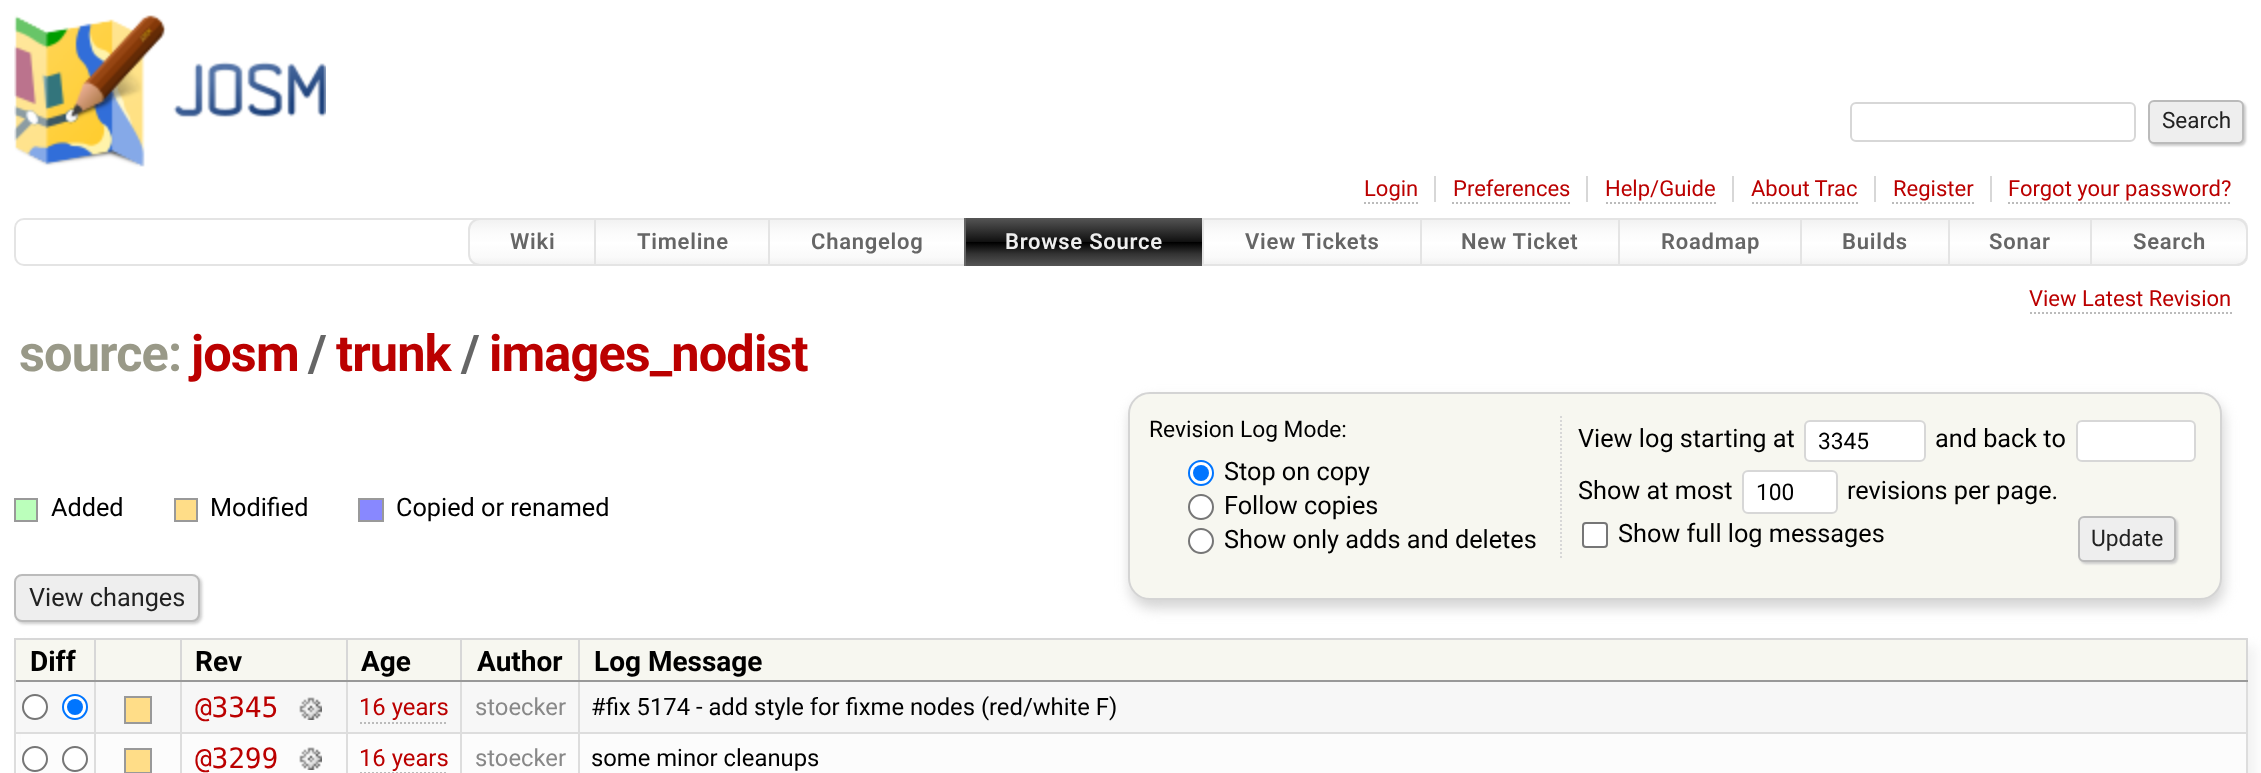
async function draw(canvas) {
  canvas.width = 2261
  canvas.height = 773
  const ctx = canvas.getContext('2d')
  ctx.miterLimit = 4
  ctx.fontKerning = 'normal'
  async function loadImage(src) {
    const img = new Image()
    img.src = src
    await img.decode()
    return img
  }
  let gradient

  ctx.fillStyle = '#fff'
  ctx.fillRect(0, 0, 2261, 773)
  ctx.drawImage(await loadImage('image0.png'), 14, 15, 312, 152)
  ctx.beginPath()
  ctx.roundRect(1851, 103, 284, 38, 5)
  ctx.strokeStyle = '#d7d7d7'
  ctx.lineWidth = 2
  ctx.stroke()
  ctx.fillStyle = '#ccc'
  ctx.filter = 'blur(1px)'
  ctx.beginPath()
  ctx.roundRect(2150, 102, 96, 44, 6)
  ctx.fill()
  ctx.filter = 'none'
  ctx.fillStyle = '#eee'
  ctx.beginPath()
  ctx.roundRect(2149, 101, 94, 42, 5)
  ctx.fill()
  ctx.strokeStyle = '#bbb'
  ctx.stroke()
  ctx.font = '22.5px Roboto'
  ctx.fillStyle = '#222'
  ctx.fillText('Search', 2162, 128)
  ctx.fillStyle = '#d7d7d7'
  ctx.fillRect(1434, 176, 2, 26)
  ctx.font = '22px Roboto'
  ctx.fillStyle = '#b00'
  ctx.fillText('Login', 1364, 196)
  ctx.beginPath()
  ctx.moveTo(1364, 203)
  ctx.lineTo(1418, 203)
  ctx.setLineDash([2, 2])
  ctx.stroke()
  ctx.fillStyle = '#d7d7d7'
  ctx.fillRect(1586, 176, 2, 26)
  ctx.fillStyle = '#b00'
  ctx.fillText('Preferences', 1453, 196)
  ctx.beginPath()
  ctx.moveTo(1452, 203)
  ctx.lineTo(1570, 203)
  ctx.stroke()
  ctx.fillStyle = '#d7d7d7'
  ctx.fillRect(1732, 176, 2, 26)
  ctx.fillStyle = '#b00'
  ctx.fillText('Help/Guide', 1605, 196)
  ctx.beginPath()
  ctx.moveTo(1606, 203)
  ctx.lineTo(1716, 203)
  ctx.stroke()
  ctx.fillStyle = '#d7d7d7'
  ctx.fillRect(1874, 176, 2, 26)
  ctx.fillStyle = '#b00'
  ctx.fillText('About Trac', 1751, 196)
  ctx.beginPath()
  ctx.moveTo(1752, 203)
  ctx.lineTo(1858, 203)
  ctx.stroke()
  ctx.fillStyle = '#d7d7d7'
  ctx.fillRect(1990, 176, 2, 26)
  ctx.fillStyle = '#b00'
  ctx.fillText('Register', 1893, 196)
  ctx.beginPath()
  ctx.moveTo(1892, 203)
  ctx.lineTo(1974, 203)
  ctx.stroke()
  ctx.fillText('Forgot your password?', 2008, 196)
  ctx.beginPath()
  ctx.moveTo(2008, 203)
  ctx.lineTo(2232, 203)
  ctx.stroke()
  ctx.beginPath()
  ctx.roundRect(15, 219, 2232, 46, 9)
  ctx.strokeStyle = '#e4e4e4'
  ctx.setLineDash([])
  ctx.stroke()
  ctx.save()
  ctx.beginPath()
  ctx.roundRect(468, 218, 130, 48, [12, 0, 0, 12])
  ctx.clip()
  gradient = ctx.createLinearGradient(533, 220, 533, 264)
  gradient.addColorStop(0, '#f2f2f2')
  gradient.addColorStop(0.25, '#fafafa')
  gradient.addColorStop(0.49, '#fefefe')
  gradient.addColorStop(0.51, '#fff')
  gradient.addColorStop(0.85, '#fafafa')
  gradient.addColorStop(1, '#f2f2f2')
  ctx.fillStyle = gradient
  ctx.fillRect(468, 220, 126, 44)
  ctx.restore()
  ctx.beginPath()
  ctx.roundRect(469, 219, 128, 46, [11, 0, 0, 11])
  ctx.stroke()
  ctx.letterSpacing = '0.75px'
  ctx.font = '600 22px Roboto'
  ctx.fillStyle = '#666'
  ctx.fillText('Wiki', 510, 249)
  gradient = ctx.createLinearGradient(682, 220, 682, 264)
  gradient.addColorStop(0, '#f2f2f2')
  gradient.addColorStop(0.25, '#fafafa')
  gradient.addColorStop(0.49, '#fefefe')
  gradient.addColorStop(0.51, '#fff')
  gradient.addColorStop(0.85, '#fafafa')
  gradient.addColorStop(1, '#f2f2f2')
  ctx.fillStyle = gradient
  ctx.fillRect(596, 220, 172, 44)
  ctx.strokeRect(595, 219, 174, 46)
  ctx.fillStyle = '#666'
  ctx.fillText('Timeline', 637, 249)
  gradient = ctx.createLinearGradient(867, 220, 867, 264)
  gradient.addColorStop(0, '#f2f2f2')
  gradient.addColorStop(0.25, '#fafafa')
  gradient.addColorStop(0.49, '#fefefe')
  gradient.addColorStop(0.51, '#fff')
  gradient.addColorStop(0.85, '#fafafa')
  gradient.addColorStop(1, '#f2f2f2')
  ctx.fillStyle = gradient
  ctx.fillRect(770, 220, 194, 44)
  ctx.strokeRect(769, 219, 196, 46)
  ctx.fillStyle = '#666'
  ctx.fillText('Changelog', 811, 249)
  ctx.strokeStyle = '#666'
  ctx.strokeRect(965, 219, 238, 46)
  gradient = ctx.createLinearGradient(1084, 218, 1084, 266)
  gradient.addColorStop(0, '#555')
  gradient.addColorStop(0.25, '#333')
  gradient.addColorStop(0.49, '#111')
  gradient.addColorStop(0.51, '#000')
  gradient.addColorStop(0.75, '#333')
  gradient.addColorStop(1, '#555')
  ctx.fillStyle = gradient
  ctx.fillRect(966, 218, 236, 48)
  ctx.fillStyle = '#eee'
  ctx.fillText('Browse Source', 1005, 249)
  gradient = ctx.createLinearGradient(1312, 220, 1312, 264)
  gradient.addColorStop(0, '#f2f2f2')
  gradient.addColorStop(0.25, '#fafafa')
  gradient.addColorStop(0.49, '#fefefe')
  gradient.addColorStop(0.51, '#fff')
  gradient.addColorStop(0.85, '#fafafa')
  gradient.addColorStop(1, '#f2f2f2')
  ctx.fillStyle = gradient
  ctx.fillRect(1204, 220, 216, 44)
  ctx.strokeStyle = '#e4e4e4'
  ctx.strokeRect(1203, 219, 218, 46)
  ctx.fillStyle = '#666'
  ctx.fillText('View Tickets', 1245, 249)
  gradient = ctx.createLinearGradient(1520, 220, 1520, 264)
  gradient.addColorStop(0, '#f2f2f2')
  gradient.addColorStop(0.25, '#fafafa')
  gradient.addColorStop(0.49, '#fefefe')
  gradient.addColorStop(0.51, '#fff')
  gradient.addColorStop(0.85, '#fafafa')
  gradient.addColorStop(1, '#f2f2f2')
  ctx.fillStyle = gradient
  ctx.fillRect(1422, 220, 196, 44)
  ctx.strokeRect(1421, 219, 198, 46)
  ctx.fillStyle = '#666'
  ctx.fillText('New Ticket', 1461, 249)
  gradient = ctx.createLinearGradient(1710, 220, 1710, 264)
  gradient.addColorStop(0, '#f2f2f2')
  gradient.addColorStop(0.25, '#fafafa')
  gradient.addColorStop(0.49, '#fefefe')
  gradient.addColorStop(0.51, '#fff')
  gradient.addColorStop(0.85, '#fafafa')
  gradient.addColorStop(1, '#f2f2f2')
  ctx.fillStyle = gradient
  ctx.fillRect(1620, 220, 180, 44)
  ctx.strokeRect(1619, 219, 182, 46)
  ctx.fillStyle = '#666'
  ctx.fillText('Roadmap', 1661, 249)
  gradient = ctx.createLinearGradient(1875, 220, 1875, 264)
  gradient.addColorStop(0, '#f2f2f2')
  gradient.addColorStop(0.25, '#fafafa')
  gradient.addColorStop(0.49, '#fefefe')
  gradient.addColorStop(0.51, '#fff')
  gradient.addColorStop(0.85, '#fafafa')
  gradient.addColorStop(1, '#f2f2f2')
  ctx.fillStyle = gradient
  ctx.fillRect(1802, 220, 146, 44)
  ctx.strokeRect(1801, 219, 148, 46)
  ctx.fillStyle = '#666'
  ctx.fillText('Builds', 1842, 249)
  gradient = ctx.createLinearGradient(2021, 220, 2021, 264)
  gradient.addColorStop(0, '#f2f2f2')
  gradient.addColorStop(0.25, '#fafafa')
  gradient.addColorStop(0.49, '#fefefe')
  gradient.addColorStop(0.51, '#fff')
  gradient.addColorStop(0.85, '#fafafa')
  gradient.addColorStop(1, '#f2f2f2')
  ctx.fillStyle = gradient
  ctx.fillRect(1950, 220, 140, 44)
  ctx.strokeRect(1949, 219, 144, 46)
  ctx.fillStyle = '#666'
  ctx.fillText('Sonar', 1989, 249)
  ctx.save()
  ctx.beginPath()
  ctx.roundRect(2090, 218, 158, 48, [0, 12, 12, 0])
  ctx.clip()
  gradient = ctx.createLinearGradient(2169, 220, 2169, 264)
  gradient.addColorStop(0, '#f2f2f2')
  gradient.addColorStop(0.25, '#fafafa')
  gradient.addColorStop(0.49, '#fefefe')
  gradient.addColorStop(0.51, '#fff')
  gradient.addColorStop(0.85, '#fafafa')
  gradient.addColorStop(1, '#f2f2f2')
  ctx.fillStyle = gradient
  ctx.fillRect(2092, 220, 156, 44)
  ctx.restore()
  ctx.beginPath()
  ctx.roundRect(2091, 219, 156, 46, [0, 11, 11, 0])
  ctx.stroke()
  ctx.fillText('Search', 2133, 249)
  ctx.letterSpacing = '0px'
  ctx.font = '22px Roboto'
  ctx.fillStyle = '#b00'
  ctx.fillText('View Latest Revision', 2029, 306)
  ctx.beginPath()
  ctx.moveTo(2030, 313)
  ctx.lineTo(2232, 313)
  ctx.strokeStyle = '#bbb'
  ctx.setLineDash([2, 2])
  ctx.stroke()
  ctx.letterSpacing = '-0.9px'
  ctx.font = 'bold 50.5px Roboto'
  ctx.fillStyle = '#998'
  ctx.fillText('source:', 19, 371)
  ctx.fillStyle = '#b00'
  ctx.fillText('josm', 191, 371)
  ctx.fillStyle = '#666'
  ctx.fillText('/', 308, 371)
  ctx.fillStyle = '#b00'
  ctx.fillText('trunk', 336, 371)
  ctx.fillStyle = '#666'
  ctx.fillText('/', 461, 371)
  ctx.fillStyle = '#b00'
  ctx.fillText('images_nodist', 489, 371)
  ctx.fillStyle = '#bfb'
  ctx.beginPath()
  ctx.rect(15, 499, 22, 22)
  ctx.fill()
  ctx.strokeStyle = '#999'
  ctx.setLineDash([])
  ctx.stroke()
  ctx.letterSpacing = '0px'
  ctx.font = '25.25px Roboto'
  ctx.fillStyle = '#000'
  ctx.fillText('Added', 51, 516)
  ctx.fillStyle = '#fd8'
  ctx.beginPath()
  ctx.rect(175, 499, 22, 22)
  ctx.fill()
  ctx.stroke()
  ctx.fillStyle = '#000'
  ctx.fillText('Modified', 210, 516)
  ctx.fillStyle = '#88f'
  ctx.beginPath()
  ctx.rect(359, 499, 24, 22)
  ctx.fill()
  ctx.stroke()
  ctx.fillStyle = '#000'
  ctx.fillText('Copied or renamed', 396, 516)
  ctx.fillStyle = '#d4d4d4'
  ctx.filter = 'blur(6.5px)'
  ctx.beginPath()
  ctx.roundRect(1130, 400, 1094, 208, 22)
  ctx.fill()
  ctx.filter = 'none'
  ctx.fillStyle = '#f7f7f0'
  ctx.beginPath()
  ctx.roundRect(1129, 393, 1092, 206, 21)
  ctx.fill()
  ctx.strokeStyle = '#d4d4d4'
  ctx.stroke()
  ctx.beginPath()
  ctx.moveTo(1561, 416)
  ctx.lineTo(1561, 558)
  ctx.strokeStyle = '#d7d7d7'
  ctx.setLineDash([2, 2])
  ctx.stroke()
  ctx.font = '22.75px Roboto'
  ctx.fillStyle = '#000'
  ctx.fillText('Revision Log Mode:', 1149, 437)
  ctx.fillStyle = '#fff'
  ctx.beginPath()
  ctx.arc(1201, 473, 12, 0, 2 * Math.PI)
  ctx.fill()
  ctx.strokeStyle = '#0075ff'
  ctx.setLineDash([])
  ctx.stroke()
  ctx.fillStyle = '#0075ff'
  ctx.beginPath()
  ctx.arc(1201, 473, 8, 0, 2 * Math.PI)
  ctx.fill()
  ctx.font = '25.25px Roboto'
  ctx.fillStyle = '#000'
  ctx.fillText('Stop on copy', 1224, 480)
  ctx.fillStyle = '#fff'
  ctx.beginPath()
  ctx.arc(1201, 507, 12, 0, 2 * Math.PI)
  ctx.fill()
  ctx.strokeStyle = '#767676'
  ctx.stroke()
  ctx.fillStyle = '#000'
  ctx.fillText('Follow copies', 1224, 514)
  ctx.fillStyle = '#fff'
  ctx.beginPath()
  ctx.arc(1201, 541, 12, 0, 2 * Math.PI)
  ctx.fill()
  ctx.stroke()
  ctx.fillStyle = '#000'
  ctx.fillText('Show only adds and deletes', 1224, 548)
  ctx.fillText('View log starting at', 1578, 447)
  ctx.fillStyle = '#fff'
  ctx.beginPath()
  ctx.roundRect(1805, 421, 120, 40, 5)
  ctx.fill()
  ctx.strokeStyle = '#d7d7d7'
  ctx.stroke()
  ctx.font = '22.75px Roboto'
  ctx.fillStyle = '#000'
  ctx.fillText('3345', 1818, 449)
  ctx.font = '25.25px Roboto'
  ctx.fillText('and back to', 1935, 447)
  ctx.fillStyle = '#fff'
  ctx.beginPath()
  ctx.roundRect(2077, 421, 118, 40, 5)
  ctx.fill()
  ctx.stroke()
  ctx.fillStyle = '#000'
  ctx.fillText('Show at most', 1578, 499)
  ctx.fillStyle = '#fff'
  ctx.beginPath()
  ctx.roundRect(1743, 471, 94, 42, 5)
  ctx.fill()
  ctx.stroke()
  ctx.font = '22.75px Roboto'
  ctx.fillStyle = '#000'
  ctx.fillText('100', 1756, 500)
  ctx.font = '25.25px Roboto'
  ctx.fillText('revisions per page.', 1847, 499)
  ctx.fillStyle = '#fff'
  ctx.beginPath()
  ctx.roundRect(1583, 523, 24, 24, 3)
  ctx.fill()
  ctx.strokeStyle = '#767676'
  ctx.stroke()
  ctx.fillStyle = '#000'
  ctx.fillText('Show full log messages', 1618, 542)
  ctx.fillStyle = '#ccc'
  ctx.filter = 'blur(1px)'
  ctx.beginPath()
  ctx.roundRect(2080, 518, 98, 46, 6)
  ctx.fill()
  ctx.filter = 'none'
  ctx.fillStyle = '#eee'
  ctx.beginPath()
  ctx.roundRect(2079, 517, 96, 44, 5)
  ctx.fill()
  ctx.strokeStyle = '#bbb'
  ctx.stroke()
  ctx.font = '22.75px Roboto'
  ctx.fillStyle = '#222'
  ctx.fillText('Update', 2091, 546)
  ctx.fillStyle = '#ccc'
  ctx.filter = 'blur(1.5px)'
  ctx.beginPath()
  ctx.roundRect(16, 576, 186, 48, 8)
  ctx.fill()
  ctx.filter = 'none'
  ctx.fillStyle = '#eee'
  ctx.beginPath()
  ctx.roundRect(15, 575, 184, 46, 7)
  ctx.fill()
  ctx.stroke()
  ctx.font = '25.25px Roboto'
  ctx.fillStyle = '#222'
  ctx.fillText('View changes', 29, 606)
  ctx.fillStyle = '#f2f2f2'
  ctx.filter = 'blur(5.5px)'
  ctx.beginPath()
  ctx.rect(22, 646, 2234, 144)
  ctx.fill()
  ctx.filter = 'none'
  ctx.fillStyle = '#f7f7f0'
  ctx.fillRect(16, 640, 2230, 40)
  ctx.fillStyle = '#d7d7d7'
  ctx.fillRect(578, 638, 1670, 2)
  ctx.fillStyle = '#ddd'
  ctx.fillRect(14, 732, 2234, 2)
  ctx.fillRect(2246, 680, 2, 93)
  ctx.fillStyle = '#d7d7d7'
  ctx.fillRect(2246, 638, 2, 44)
  ctx.fillStyle = '#f7f7f7'
  ctx.fillRect(16, 682, 2230, 50)
  ctx.fillStyle = '#fcfcfc'
  ctx.fillRect(21, 734, 2225, 39)
  ctx.fillStyle = '#ddd'
  ctx.fillRect(578, 680, 2, 93)
  ctx.fillStyle = '#999'
  ctx.fillRect(578, 680, 1670, 2)
  ctx.fillStyle = '#d7d7d7'
  ctx.fillRect(578, 638, 2, 44)
  ctx.fillRect(460, 638, 120, 2)
  ctx.fillStyle = '#ddd'
  ctx.fillRect(460, 680, 2, 93)
  ctx.fillStyle = '#999'
  ctx.fillRect(460, 680, 120, 2)
  ctx.fillStyle = '#d7d7d7'
  ctx.fillRect(460, 638, 2, 44)
  ctx.fillRect(346, 638, 116, 2)
  ctx.fillStyle = '#ddd'
  ctx.fillRect(346, 680, 2, 93)
  ctx.fillStyle = '#999'
  ctx.fillRect(346, 680, 116, 2)
  ctx.fillStyle = '#d7d7d7'
  ctx.fillRect(346, 638, 2, 44)
  ctx.fillRect(180, 638, 168, 2)
  ctx.fillStyle = '#ddd'
  ctx.fillRect(180, 680, 2, 93)
  ctx.fillStyle = '#999'
  ctx.fillRect(180, 680, 168, 2)
  ctx.fillStyle = '#d7d7d7'
  ctx.fillRect(180, 638, 2, 44)
  ctx.fillRect(94, 638, 88, 2)
  ctx.fillStyle = '#ddd'
  ctx.fillRect(94, 680, 2, 93)
  ctx.fillStyle = '#999'
  ctx.fillRect(94, 680, 88, 2)
  ctx.fillStyle = '#d7d7d7'
  ctx.fillRect(94, 638, 2, 44)
  ctx.fillRect(14, 638, 82, 2)
  ctx.fillStyle = '#ddd'
  ctx.fillRect(14, 680, 2, 93)
  ctx.fillStyle = '#999'
  ctx.fillRect(14, 680, 82, 2)
  ctx.fillStyle = '#d7d7d7'
  ctx.fillRect(14, 638, 2, 44)
  ctx.font = 'bold 28px Roboto'
  ctx.fillStyle = '#000'
  ctx.fillText('Diff', 30, 671)
  ctx.fillText('Rev', 195, 671)
  ctx.fillText('Age', 361, 671)
  ctx.fillText('Author', 477, 671)
  ctx.fillText('Log Message', 594, 671)
  ctx.fillStyle = '#fff'
  ctx.beginPath()
  ctx.arc(35, 707, 12, 0, 2 * Math.PI)
  ctx.fill()
  ctx.strokeStyle = '#767676'
  ctx.stroke()
  ctx.beginPath()
  ctx.arc(75, 707, 12, 0, 2 * Math.PI)
  ctx.fill()
  ctx.strokeStyle = '#0075ff'
  ctx.stroke()
  ctx.fillStyle = '#0075ff'
  ctx.beginPath()
  ctx.arc(75, 707, 8, 0, 2 * Math.PI)
  ctx.fill()
  ctx.fillStyle = '#fd8'
  ctx.beginPath()
  ctx.rect(125, 697, 26, 26)
  ctx.fill()
  ctx.strokeStyle = '#999'
  ctx.stroke()
  ctx.letterSpacing = '-0.25px'
  ctx.font = '28px DejaVu Sans Mono'
  ctx.fillStyle = '#b00'
  ctx.fillText('@3345', 195, 717)
  ctx.drawImage(await loadImage('image1.png'), 299, 697, 23, 23)
  ctx.letterSpacing = '0px'
  ctx.font = '23.8px Roboto'
  ctx.fillText('16 years', 359, 715)
  ctx.beginPath()
  ctx.moveTo(360, 723)
  ctx.lineTo(448, 723)
  ctx.strokeStyle = '#bbb'
  ctx.setLineDash([2, 2])
  ctx.stroke()
  ctx.fillStyle = '#888'
  ctx.fillText('stoecker', 475, 715)
  ctx.fillStyle = '#000'
  ctx.fillText('#fix 5174 - add style for fixme nodes (red/white F)', 591, 715)
  ctx.fillStyle = '#fff'
  ctx.beginPath()
  ctx.arc(35, 759, 12, 0, 2 * Math.PI)
  ctx.fill()
  ctx.strokeStyle = '#767676'
  ctx.setLineDash([])
  ctx.stroke()
  ctx.beginPath()
  ctx.arc(75, 759, 12, 0, 2 * Math.PI)
  ctx.fill()
  ctx.stroke()
  ctx.fillStyle = '#fd8'
  ctx.beginPath()
  ctx.rect(125, 749, 26, 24)
  ctx.fill()
  ctx.strokeStyle = '#999'
  ctx.stroke()
  ctx.letterSpacing = '-0.25px'
  ctx.font = '28px DejaVu Sans Mono'
  ctx.fillStyle = '#b00'
  ctx.fillText('@3299', 195, 768)
  ctx.drawImage(await loadImage('image2.png'), 299, 747, 23, 23)
  ctx.letterSpacing = '0px'
  ctx.font = '23.8px Roboto'
  ctx.fillText('16 years', 359, 766)
  ctx.beginPath()
  ctx.moveTo(360, 773)
  ctx.lineTo(448, 773)
  ctx.strokeStyle = '#bbb'
  ctx.setLineDash([2, 2])
  ctx.stroke()
  ctx.fillStyle = '#888'
  ctx.fillText('stoecker', 475, 766)
  ctx.fillStyle = '#000'
  ctx.fillText('some minor cleanups', 591, 766)
}

draw(document.querySelector('canvas'))
